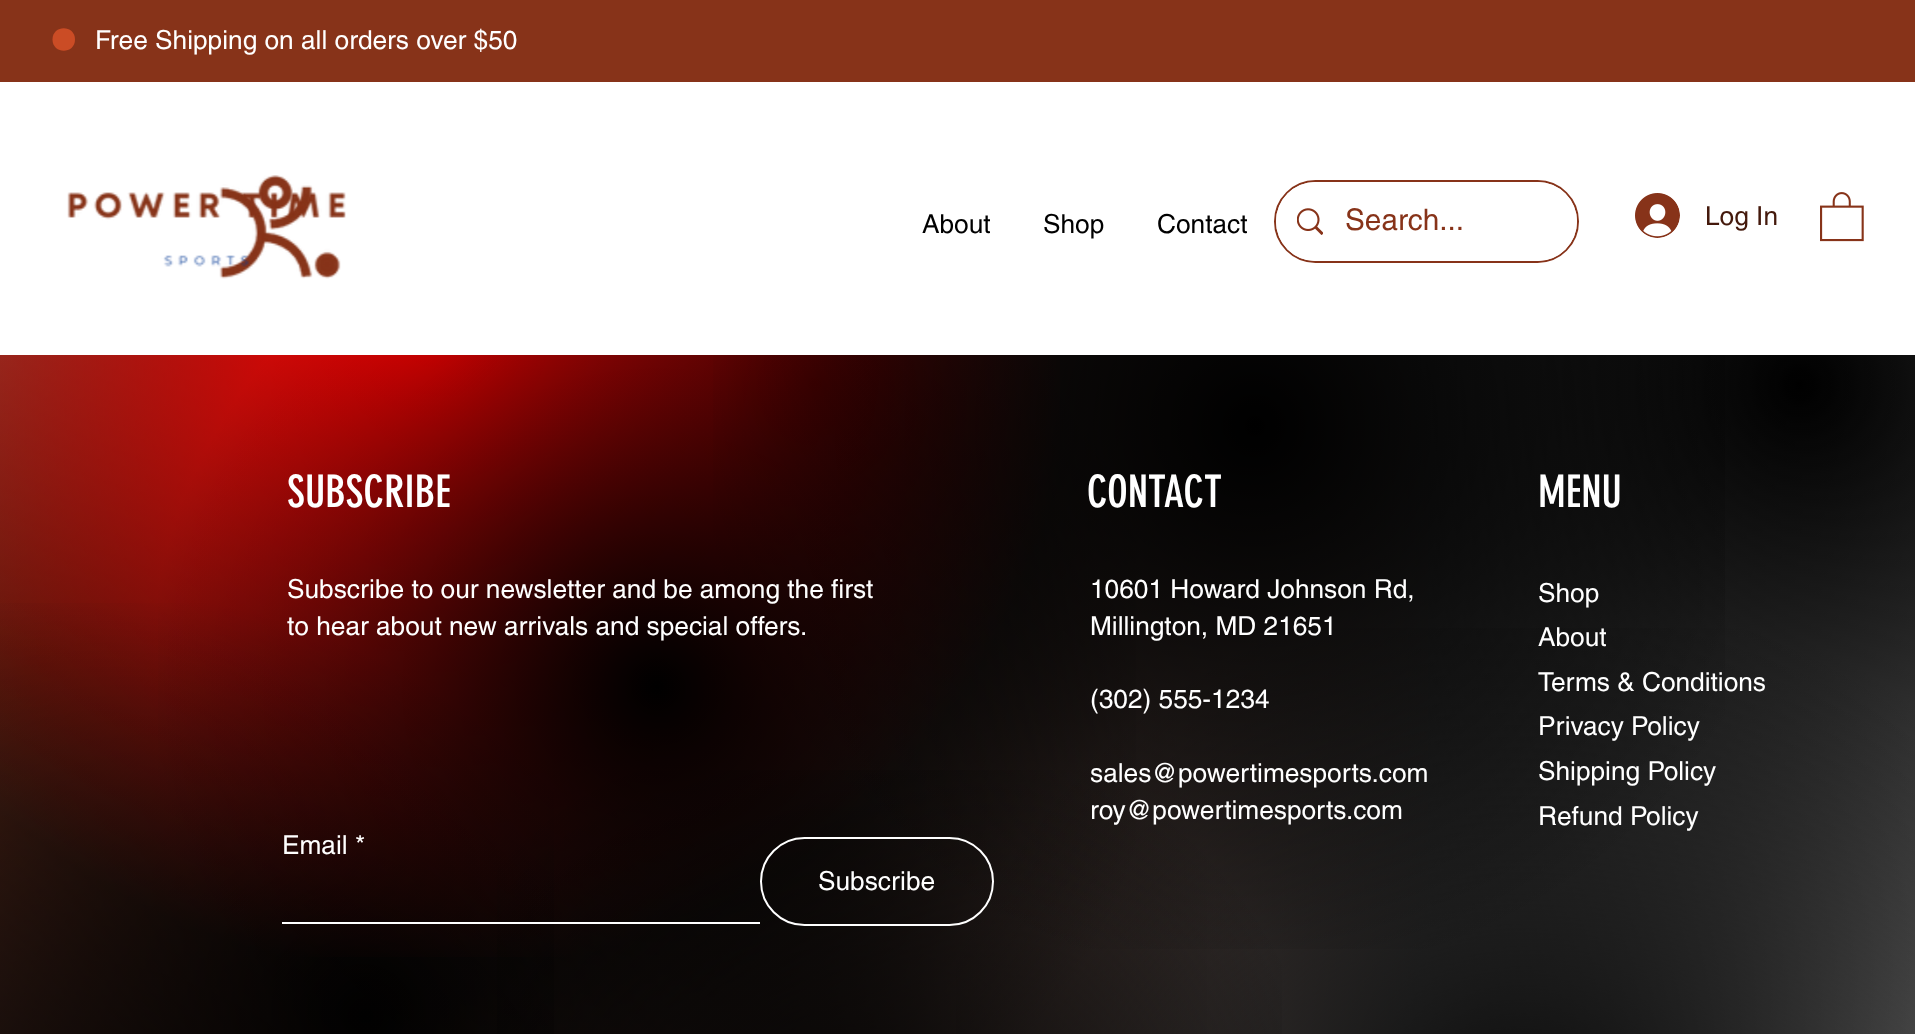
async function draw(canvas) {
  canvas.width = 1915
  canvas.height = 1034
  const ctx = canvas.getContext('2d')
  ctx.miterLimit = 4
  ctx.fontKerning = 'normal'
  async function loadImage(src) {
    const img = new Image()
    img.src = src
    await img.decode()
    return img
  }
  let gradient

  ctx.fillStyle = '#fff'
  ctx.fillRect(0, 0, 1915, 1034)
  ctx.fillStyle = '#873319'
  ctx.fillRect(0, 0, 1915, 82)
  ctx.fillStyle = '#cb4c25'
  ctx.beginPath()
  ctx.moveTo(75, 39.5)
  ctx.bezierCurveTo(75, 54.5, 52.5, 54.5, 52.5, 39.5)
  ctx.bezierCurveTo(52.5, 24.5, 75, 24.5, 75, 39.5)
  ctx.closePath()
  ctx.fill()
  ctx.font = '26.25px helvetica'
  ctx.fillStyle = '#fff'
  ctx.fillText('Free Shipping on all orders over $50', 95, 49)
  ctx.drawImage(await loadImage('image0.png'), 219, 175, 122, 104)
  ctx.drawImage(await loadImage('image1.png'), 67, 192, 279, 75)
  ctx.fillStyle = '#000'
  ctx.fillText('About', 922, 233)
  ctx.fillText('Shop', 1043, 233)
  ctx.fillText('Contact', 1157, 233)
  ctx.beginPath()
  ctx.roundRect(1275, 181, 303, 81, 40.5)
  ctx.strokeStyle = '#873319'
  ctx.lineWidth = 2
  ctx.stroke()
  ctx.fillStyle = '#fff'
  ctx.beginPath()
  ctx.roundRect(1276, 182, 301, 79, 39.5)
  ctx.fill()
  ctx.drawImage(await loadImage('image2.png'), 1297, 208, 26, 27)
  ctx.font = '29.75px helvetica'
  ctx.fillStyle = '#873319'
  ctx.fillText('Search...', 1345, 230)
  ctx.drawImage(await loadImage('image3.png'), 1635, 193, 45, 45)
  ctx.font = '26.25px helvetica'
  ctx.fillStyle = '#44190c'
  ctx.fillText('Log In', 1705, 225)
  ctx.drawImage(await loadImage('image4.png'), 1820, 192, 44, 50)
  gradient = ctx.createRadialGradient(1800, 385, 0, 1800, 385, 2076)
  gradient.addColorStop(0, '#000')
  gradient.addColorStop(0.7, '#fff')
  ctx.fillStyle = gradient
  ctx.fillRect(369, 355, 1546, 679)
  gradient = ctx.createRadialGradient(36, 666, 0, 36, 666, 2025)
  gradient.addColorStop(0, '#cb4c25')
  gradient.addColorStop(0.7, '#cb4c2500')
  ctx.fillStyle = gradient
  ctx.fillRect(0, 355, 1428, 679)
  gradient = ctx.createRadialGradient(366, 1016, 0, 366, 1016, 1717)
  gradient.addColorStop(0, '#000000fc')
  gradient.addColorStop(0.5, '#00000000')
  ctx.fillStyle = gradient
  ctx.fillRect(0, 355, 1207, 679)
  gradient = ctx.createRadialGradient(815, 384, 0, 815, 384, 1511)
  gradient.addColorStop(0, '#000')
  gradient.addColorStop(1, '#00000000')
  ctx.fillStyle = gradient
  ctx.fillRect(0, 355, 1915, 679)
  gradient = ctx.createRadialGradient(431, 330, 0, 431, 330, 1841)
  gradient.addColorStop(0, '#fb0000')
  gradient.addColorStop(0.35, '#fb000000')
  ctx.fillStyle = gradient
  ctx.fillRect(0, 355, 1060, 602)
  gradient = ctx.createRadialGradient(657, 687, 0, 657, 687, 1457)
  gradient.addColorStop(0, '#000')
  gradient.addColorStop(0.35, '#00000000')
  ctx.fillStyle = gradient
  ctx.fillRect(158, 355, 978, 679)
  gradient = ctx.createRadialGradient(1523, 1200, 0, 1523, 1200, 1781)
  gradient.addColorStop(0, '#000')
  gradient.addColorStop(0.35, '#00000000')
  ctx.fillStyle = gradient
  ctx.fillRect(956, 628, 959, 406)
  gradient = ctx.createRadialGradient(855, 1190, 0, 855, 1190, 1400)
  gradient.addColorStop(0, '#000')
  gradient.addColorStop(0.35, '#00000000')
  ctx.fillStyle = gradient
  ctx.fillRect(497, 770, 785, 264)
  gradient = ctx.createRadialGradient(1255, 426, 0, 1255, 426, 1601)
  gradient.addColorStop(0, '#000')
  gradient.addColorStop(0.35, '#00000000')
  ctx.fillStyle = gradient
  ctx.fillRect(713, 355, 1012, 594)
  gradient = ctx.createRadialGradient(58, 1333, 0, 58, 1333, 2138)
  gradient.addColorStop(0, '#000')
  gradient.addColorStop(0.35, '#00000000')
  ctx.fillStyle = gradient
  ctx.fillRect(0, 603, 554, 431)
  ctx.font = '44px "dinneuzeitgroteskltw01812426"'
  ctx.fillStyle = '#fff'
  ctx.fillText('SUBSCRIBE', 287, 507)
  ctx.fillText('CONTACT', 1087, 507)
  ctx.fillText('MENU', 1538, 507)
  ctx.font = '26.25px helvetica'
  ctx.fillText('Subscribe to our newsletter and be among the first', 287, 598)
  ctx.fillText('to hear about new arrivals and special offers.', 287, 635)
  ctx.fillText('10601 Howard Johnson Rd,', 1090, 598)
  ctx.fillText('Millington, MD 21651', 1090, 635)
  ctx.fillText('(302) 555-1234', 1090, 708)
  ctx.fillText('sales@powertimesports.com', 1090, 782)
  ctx.fillText('roy@powertimesports.com', 1090, 819)
  ctx.fillText('Shop', 1538, 602)
  ctx.fillText('About', 1538, 646)
  ctx.fillText('Terms & Conditions', 1538, 691)
  ctx.fillText('Privacy Policy', 1538, 735)
  ctx.fillText('Shipping Policy', 1538, 780)
  ctx.fillText('Refund Policy', 1538, 825)
  ctx.fillText('Email *', 282, 854)
  ctx.fillRect(282, 922, 478, 2)
  ctx.beginPath()
  ctx.roundRect(761, 838, 232, 87, 43.5)
  ctx.strokeStyle = '#fff'
  ctx.stroke()
  ctx.fillText('Subscribe', 818, 890)
}

draw(document.querySelector('canvas'))
